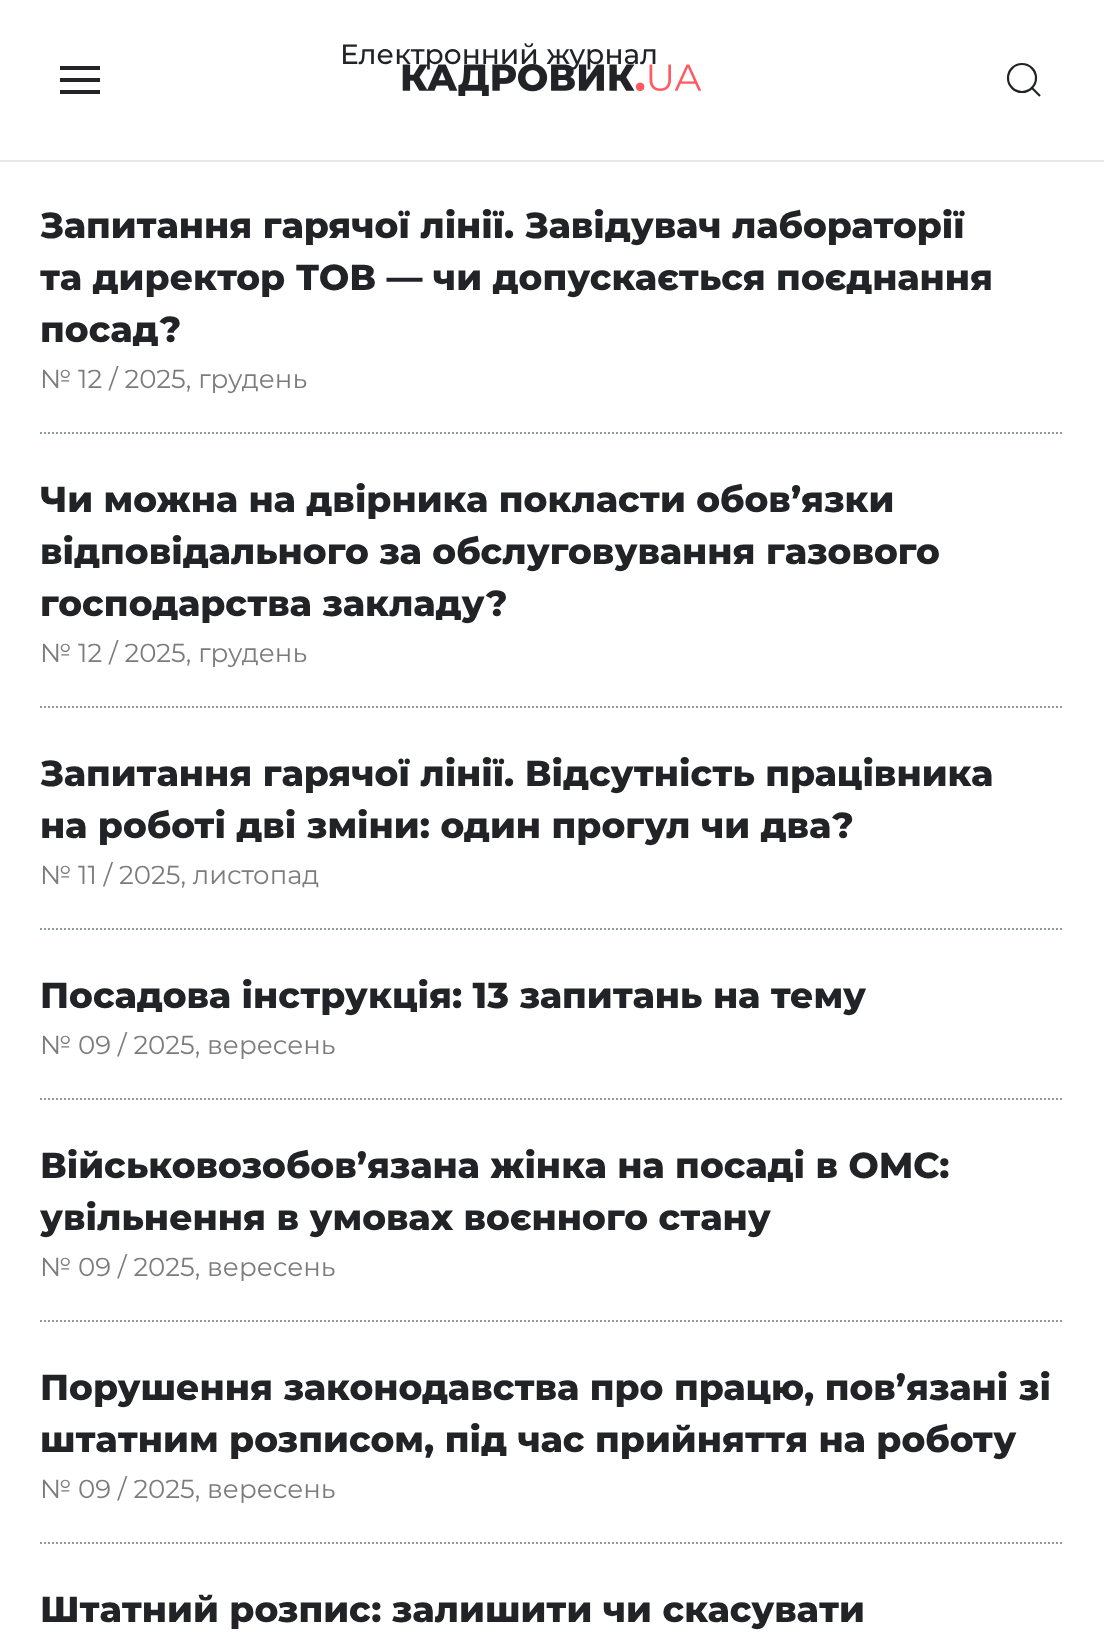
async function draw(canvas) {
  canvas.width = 1104
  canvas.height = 1646
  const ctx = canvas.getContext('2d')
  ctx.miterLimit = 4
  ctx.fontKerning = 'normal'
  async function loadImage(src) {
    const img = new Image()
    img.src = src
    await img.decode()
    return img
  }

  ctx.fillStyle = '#fff'
  ctx.fillRect(0, 0, 1104, 1646)
  ctx.fillStyle = '#e8e8e8'
  ctx.fillRect(0, 160, 1104, 2)
  ctx.drawImage(await loadImage('image0.png'), 402, 64, 300, 32)
  ctx.font = '500 28px Montserrat'
  ctx.fillStyle = '#212326'
  ctx.fillText('Електронний журнал', 340, 64)
  ctx.fillRect(60, 78, 40, 4)
  ctx.fillRect(60, 66, 40, 4)
  ctx.fillRect(60, 90, 40, 4)
  ctx.beginPath()
  ctx.arc(1022, 78, 14, 0, 2 * Math.PI)
  ctx.strokeStyle = '#212326'
  ctx.lineWidth = 2.2
  ctx.stroke()
  ctx.beginPath()
  ctx.moveTo(1032, 88)
  ctx.lineTo(1040, 96)
  ctx.closePath()
  ctx.stroke()
  ctx.beginPath()
  ctx.moveTo(40, 433)
  ctx.lineTo(1064, 433)
  ctx.strokeStyle = '#8e9aa6'
  ctx.lineWidth = 2
  ctx.setLineDash([2, 2])
  ctx.stroke()
  ctx.font = '800 36px Montserrat'
  ctx.fillText('Запитання гарячої лінії. Завідувач лабораторії', 40, 238)
  ctx.fillText('та директор ТОВ — чи допускається поєднання', 40, 290)
  ctx.fillText('посад?', 40, 342)
  ctx.font = '26px Montserrat'
  ctx.fillStyle = '#7c7c7c'
  ctx.fillText('№ 12 / 2025, грудень', 40, 388)
  ctx.beginPath()
  ctx.moveTo(40, 707)
  ctx.lineTo(1064, 707)
  ctx.stroke()
  ctx.font = '800 36px Montserrat'
  ctx.fillStyle = '#212326'
  ctx.fillText('Чи можна на двірника покласти обов’язки', 40, 512)
  ctx.fillText('відповідального за обслуговування газового', 40, 564)
  ctx.fillText('господарства закладу?', 40, 616)
  ctx.font = '26px Montserrat'
  ctx.fillStyle = '#7c7c7c'
  ctx.fillText('№ 12 / 2025, грудень', 40, 662)
  ctx.beginPath()
  ctx.moveTo(40, 929)
  ctx.lineTo(1064, 929)
  ctx.stroke()
  ctx.font = '800 36px Montserrat'
  ctx.fillStyle = '#212326'
  ctx.fillText('Запитання гарячої лінії. Відсутність працівника', 40, 786)
  ctx.fillText('на роботі дві зміни: один прогул чи два?', 40, 838)
  ctx.font = '26px Montserrat'
  ctx.fillStyle = '#7c7c7c'
  ctx.fillText('№ 11 / 2025, листопад', 40, 884)
  ctx.beginPath()
  ctx.moveTo(40, 1099)
  ctx.lineTo(1064, 1099)
  ctx.stroke()
  ctx.font = '800 36px Montserrat'
  ctx.fillStyle = '#212326'
  ctx.fillText('Посадова інструкція: 13 запитань на тему', 40, 1008)
  ctx.font = '26px Montserrat'
  ctx.fillStyle = '#7c7c7c'
  ctx.fillText('№ 09 / 2025, вересень', 40, 1054)
  ctx.beginPath()
  ctx.moveTo(40, 1321)
  ctx.lineTo(1064, 1321)
  ctx.stroke()
  ctx.font = '800 36px Montserrat'
  ctx.fillStyle = '#212326'
  ctx.fillText('Військовозобов’язана жінка на посаді в ОМС:', 40, 1178)
  ctx.fillText('увільнення в умовах воєнного стану', 40, 1230)
  ctx.font = '26px Montserrat'
  ctx.fillStyle = '#7c7c7c'
  ctx.fillText('№ 09 / 2025, вересень', 40, 1276)
  ctx.beginPath()
  ctx.moveTo(40, 1543)
  ctx.lineTo(1064, 1543)
  ctx.stroke()
  ctx.font = '800 36px Montserrat'
  ctx.fillStyle = '#212326'
  ctx.fillText('Порушення законодавства про працю, пов’язані зі', 40, 1400)
  ctx.fillText('штатним розписом, під час прийняття на роботу', 40, 1452)
  ctx.font = '26px Montserrat'
  ctx.fillStyle = '#7c7c7c'
  ctx.fillText('№ 09 / 2025, вересень', 40, 1498)
  ctx.font = '800 36px Montserrat'
  ctx.fillStyle = '#212326'
  ctx.fillText('Штатний розпис: залишити чи скасувати', 40, 1622)
}

draw(document.querySelector('canvas'))
